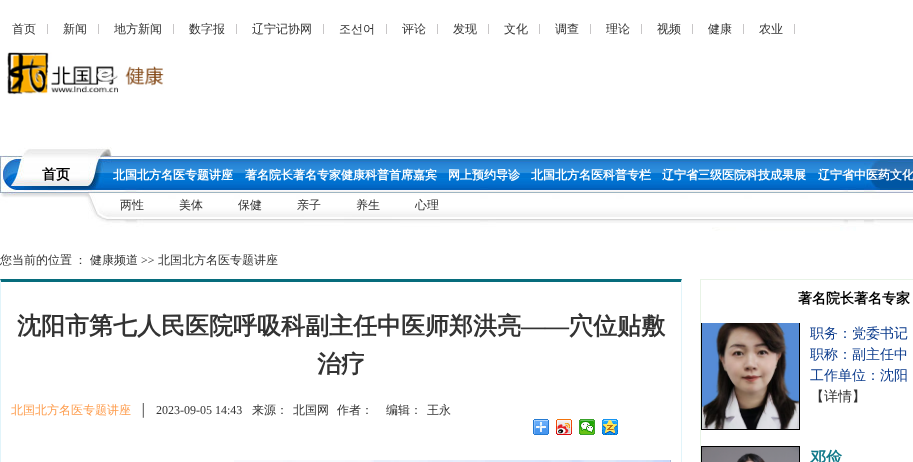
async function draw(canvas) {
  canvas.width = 913
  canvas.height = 462
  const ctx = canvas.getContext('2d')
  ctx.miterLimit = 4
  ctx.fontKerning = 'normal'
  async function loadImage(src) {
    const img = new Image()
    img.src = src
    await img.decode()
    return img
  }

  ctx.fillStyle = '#fff'
  ctx.fillRect(0, 0, 913, 462)
  ctx.font = '500 12px WenQuanYi Zen Hei'
  ctx.fillStyle = '#333'
  ctx.fillText('首页', 12, 33)
  ctx.fillStyle = '#c8c6c7'
  ctx.fillRect(47, 24, 1, 10)
  ctx.fillStyle = '#333'
  ctx.fillText('新闻', 63, 33)
  ctx.fillStyle = '#c8c6c7'
  ctx.fillRect(98, 24, 1, 10)
  ctx.fillStyle = '#333'
  ctx.fillText('地方新闻', 114, 33)
  ctx.fillStyle = '#c8c6c7'
  ctx.fillRect(173, 24, 1, 10)
  ctx.fillStyle = '#333'
  ctx.fillText('数字报', 189, 33)
  ctx.fillStyle = '#c8c6c7'
  ctx.fillRect(236, 24, 1, 10)
  ctx.fillStyle = '#333'
  ctx.fillText('辽宁记协网', 252, 33)
  ctx.fillStyle = '#c8c6c7'
  ctx.fillRect(323, 24, 1, 10)
  ctx.fillStyle = '#333'
  ctx.fillText('조선어', 339, 33)
  ctx.fillStyle = '#c8c6c7'
  ctx.fillRect(386, 24, 1, 10)
  ctx.fillStyle = '#333'
  ctx.fillText('评论', 402, 33)
  ctx.fillStyle = '#c8c6c7'
  ctx.fillRect(437, 24, 1, 10)
  ctx.fillStyle = '#333'
  ctx.fillText('发现', 453, 33)
  ctx.fillStyle = '#c8c6c7'
  ctx.fillRect(488, 24, 1, 10)
  ctx.fillStyle = '#333'
  ctx.fillText('文化', 504, 33)
  ctx.fillStyle = '#c8c6c7'
  ctx.fillRect(539, 24, 1, 10)
  ctx.fillStyle = '#333'
  ctx.fillText('调查', 555, 33)
  ctx.fillStyle = '#c8c6c7'
  ctx.fillRect(590, 24, 1, 10)
  ctx.fillStyle = '#333'
  ctx.fillText('理论', 606, 33)
  ctx.fillStyle = '#c8c6c7'
  ctx.fillRect(641, 24, 1, 10)
  ctx.fillStyle = '#333'
  ctx.fillText('视频', 657, 33)
  ctx.fillStyle = '#c8c6c7'
  ctx.fillRect(692, 24, 1, 10)
  ctx.fillStyle = '#333'
  ctx.fillText('健康', 708, 33)
  ctx.fillStyle = '#c8c6c7'
  ctx.fillRect(743, 24, 1, 10)
  ctx.fillStyle = '#333'
  ctx.fillText('农业', 759, 33)
  ctx.fillStyle = '#c8c6c7'
  ctx.fillRect(794, 24, 1, 10)
  ctx.drawImage(await loadImage('image0.png'), 7, 52, 157, 43)
  ctx.drawImage(await loadImage('image1.png'), 0, 147, 913, 84)
  ctx.font = 'bold 14px WenQuanYi Zen Hei'
  ctx.fillStyle = '#000'
  ctx.fillText('首页', 42, 179)
  ctx.font = 'bold 12px WenQuanYi Zen Hei'
  ctx.fillStyle = '#fff'
  ctx.fillText('北国北方名医专题讲座', 113, 179)
  ctx.fillText('著名院长著名专家健康科普首席嘉宾', 245, 179)
  ctx.fillText('网上预约导诊', 448, 179)
  ctx.fillText('北国北方名医科普专栏', 531, 179)
  ctx.fillText('辽宁省三级医院科技成果展', 662, 179)
  ctx.fillText('辽宁省中医药文化', 818, 179)
  ctx.font = '500 12px WenQuanYi Zen Hei'
  ctx.fillStyle = '#333'
  ctx.fillText('两性', 120, 209)
  ctx.fillText('美体', 179, 209)
  ctx.fillText('保健', 238, 209)
  ctx.fillText('亲子', 297, 209)
  ctx.fillText('养生', 356, 209)
  ctx.fillText('心理', 415, 209)
  ctx.wordSpacing = '-1px'
  ctx.fillText('您当前的位置 ：', 0, 264)
  ctx.wordSpacing = '0px'
  ctx.fillText('健康频道', 90, 264)
  ctx.font = '12px Liberation Serif'
  ctx.fillText('>>', 141, 264)
  ctx.font = '500 12px WenQuanYi Zen Hei'
  ctx.fillText('北国北方名医专题讲座', 158, 264)
  ctx.fillStyle = '#066c7c'
  ctx.beginPath()
  ctx.moveTo(0, 279)
  ctx.lineTo(682, 279)
  ctx.lineTo(681, 282)
  ctx.lineTo(1, 282)
  ctx.closePath()
  ctx.fill()
  ctx.fillStyle = '#e1f4fa'
  ctx.beginPath()
  ctx.moveTo(682, 279)
  ctx.lineTo(682, 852)
  ctx.lineTo(681, 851)
  ctx.lineTo(681, 282)
  ctx.closePath()
  ctx.fill()
  ctx.beginPath()
  ctx.moveTo(0, 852)
  ctx.lineTo(0, 279)
  ctx.lineTo(1, 282)
  ctx.lineTo(1, 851)
  ctx.closePath()
  ctx.fill()
  ctx.font = 'bold 24px WenQuanYi Zen Hei'
  ctx.fillStyle = '#333'
  ctx.fillText('沈阳市第七人民医院呼吸科副主任中医师郑洪亮', 17, 334)
  ctx.font = 'bold 24px Liberation Serif'
  ctx.fillText('——', 521, 334)
  ctx.font = 'bold 24px WenQuanYi Zen Hei'
  ctx.fillText('穴位贴敷', 569, 334)
  ctx.fillText('治疗', 317, 372)
  ctx.font = '500 12px WenQuanYi Zen Hei'
  ctx.fillStyle = '#fe9d4e'
  ctx.fillText('北国北方名医专题讲座', 11, 414)
  ctx.font = '12px Liberation Serif'
  ctx.fillStyle = '#333'
  ctx.fillText('│', 139, 414)
  ctx.fillText('2023-09-05 14:43', 156, 414)
  ctx.font = '500 12px WenQuanYi Zen Hei'
  ctx.fillText('来源：', 252, 414)
  ctx.fillText('北国网', 293, 414)
  ctx.fillText('作者：', 337, 414)
  ctx.fillText('编辑：', 386, 414)
  ctx.fillText('王永', 427, 414)
  ctx.drawImage(await loadImage('image2.png'), 533, 419, 16, 16)
  ctx.drawImage(await loadImage('image3.png'), 556, 419, 16, 16)
  ctx.drawImage(await loadImage('image4.png'), 579, 419, 16, 16)
  ctx.drawImage(await loadImage('image5.png'), 602, 419, 16, 16)
  ctx.drawImage(await loadImage('image6.png'), 234, 460, 437, 2)
  ctx.strokeStyle = '#e8f3e6'
  ctx.strokeRect(700.5, 279.5, 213, 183)
  ctx.font = 'bold 14px WenQuanYi Zen Hei'
  ctx.fillStyle = '#000'
  ctx.fillText('著名院长著名专家', 798, 303)
  ctx.save()
  ctx.beginPath()
  ctx.rect(701, 323, 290, 123)
  ctx.clip()
  ctx.strokeStyle = '#000'
  ctx.strokeRect(701.5, 296.5, 98, 133)
  ctx.restore()
  ctx.drawImage(await loadImage('image7.png'), 702, 323, 97, 106)
  ctx.font = '500 14px WenQuanYi Zen Hei'
  ctx.fillStyle = '#0b3b8c'
  ctx.fillText('职务：党委书记', 810, 338)
  ctx.fillText('职称：副主任中', 810, 359)
  ctx.fillText('工作单位：沈阳', 810, 380)
  ctx.fillStyle = '#333'
  ctx.fillText('【详情】', 810, 401)
  ctx.strokeStyle = '#000'
  ctx.strokeRect(701.5, 446.5, 98, 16)
  ctx.drawImage(await loadImage('image8.png'), 702, 447, 97, 15)
  ctx.font = 'bold 16px WenQuanYi Zen Hei'
  ctx.fillStyle = '#127a8a'
  ctx.fillText('邓俭', 810, 463)
}

draw(document.querySelector('canvas'))
